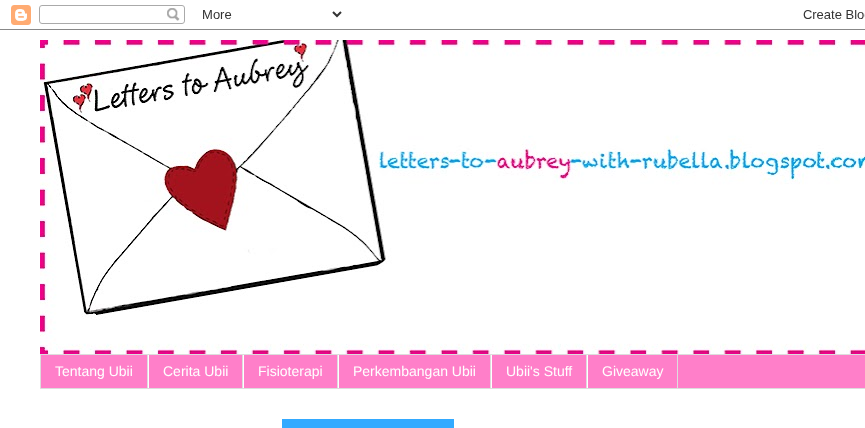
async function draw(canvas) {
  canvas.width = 865
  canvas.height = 428
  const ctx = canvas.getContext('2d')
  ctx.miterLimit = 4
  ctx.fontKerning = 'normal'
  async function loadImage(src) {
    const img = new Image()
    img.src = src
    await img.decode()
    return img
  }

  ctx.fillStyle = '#fff'
  ctx.fillRect(0, 0, 865, 428)
  ctx.drawImage(await loadImage('image0.png'), 0, 5, 865, 25)
  ctx.drawImage(await loadImage('image1.png'), 40, 40, 825, 314)
  ctx.fillStyle = '#ff7fc9'
  ctx.beginPath()
  ctx.rect(40.5, 354.5, 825, 34)
  ctx.fill()
  ctx.strokeStyle = '#ddd'
  ctx.stroke()
  ctx.fillStyle = '#ddd'
  ctx.fillRect(147, 355, 1, 33)
  ctx.font = '14px Liberation Sans'
  ctx.fillStyle = '#fff'
  ctx.fillText('Tentang Ubii', 55, 376)
  ctx.fillStyle = '#ddd'
  ctx.fillRect(242, 355, 1, 33)
  ctx.fillStyle = '#fff'
  ctx.fillRect(148, 355, 1, 33)
  ctx.fillText('Cerita Ubii', 163, 376)
  ctx.fillStyle = '#ddd'
  ctx.fillRect(337, 355, 1, 33)
  ctx.fillStyle = '#fff'
  ctx.fillRect(243, 355, 1, 33)
  ctx.fillText('Fisioterapi', 258, 376)
  ctx.fillStyle = '#ddd'
  ctx.fillRect(490, 355, 1, 33)
  ctx.fillStyle = '#fff'
  ctx.fillRect(338, 355, 1, 33)
  ctx.fillText('Perkembangan Ubii', 353, 376)
  ctx.fillStyle = '#ddd'
  ctx.fillRect(586, 355, 1, 33)
  ctx.fillStyle = '#fff'
  ctx.fillRect(491, 355, 1, 33)
  ctx.fillText('Ubii\'s Stuff', 506, 376)
  ctx.fillStyle = '#ddd'
  ctx.fillRect(677, 355, 1, 33)
  ctx.fillStyle = '#fff'
  ctx.fillRect(587, 355, 1, 33)
  ctx.fillText('Giveaway', 602, 376)
  ctx.fillStyle = '#3af'
  ctx.fillRect(282, 419, 172, 9)
}

draw(document.querySelector('canvas'))
